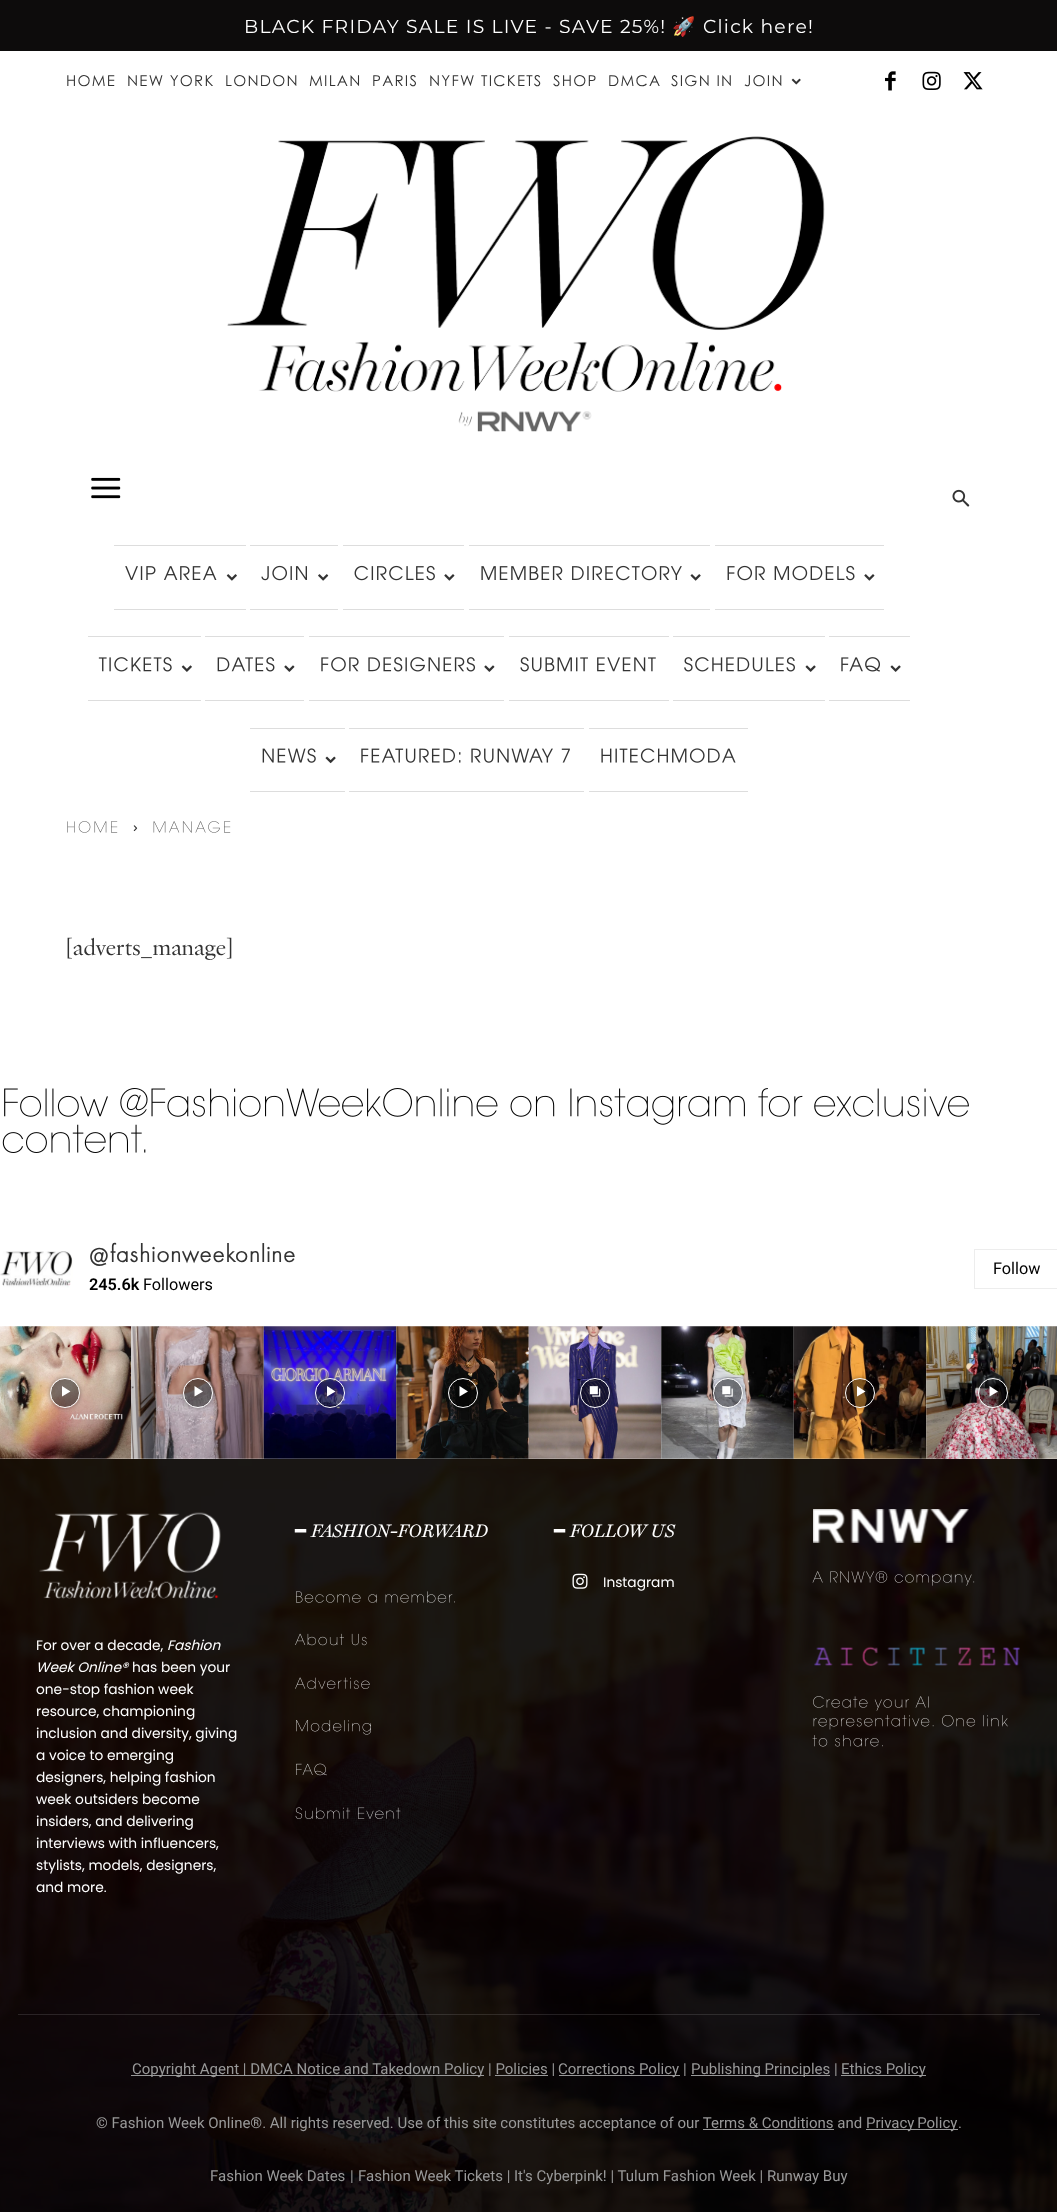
async function draw(canvas) {
  canvas.width = 1057
  canvas.height = 2212
  const ctx = canvas.getContext('2d')
  ctx.miterLimit = 4
  ctx.fontKerning = 'normal'
  async function loadImage(src) {
    const img = new Image()
    img.src = src
    await img.decode()
    return img
  }

  ctx.fillStyle = '#fff'
  ctx.fillRect(0, 0, 1057, 2212)
  ctx.fillStyle = '#0d0c0c'
  ctx.fillRect(0, 0, 1057, 51)
  ctx.letterSpacing = '1.25px'
  ctx.font = '18.75px Montserrat'
  ctx.fillStyle = '#fff'
  ctx.fillText('BLACK FRIDAY SALE IS LIVE - SAVE 25%!', 244, 33)
  ctx.font = '18.75px Noto Color Emoji'
  ctx.fillText('🚀', 672, 33)
  ctx.font = '18.75px Montserrat'
  ctx.fillText('Click here!', 703, 33)
  ctx.font = '15px Century Gothic'
  ctx.fillStyle = '#333'
  ctx.fillText('HOME', 66, 86)
  ctx.fillText('NEW YORK', 127, 86)
  ctx.fillText('LONDON', 225, 86)
  ctx.fillText('MILAN', 309, 86)
  ctx.fillText('PARIS', 372, 86)
  ctx.fillText('NYFW TICKETS', 429, 86)
  ctx.fillText('SHOP', 553, 86)
  ctx.fillText('DMCA', 608, 86)
  ctx.fillText('SIGN IN', 671, 86)
  ctx.fillText('JOIN', 744, 86)
  ctx.drawImage(await loadImage('image0.png'), 791, 78, 10, 7)
  ctx.drawImage(await loadImage('image1.png'), 885, 71, 11, 20)
  ctx.drawImage(await loadImage('image2.png'), 922, 71, 19, 19)
  ctx.drawImage(await loadImage('image3.png'), 963, 72, 20, 18)
  ctx.drawImage(await loadImage('image4.png'), 227, 136, 598, 296)
  ctx.drawImage(await loadImage('image5.png'), 91, 477, 30, 22)
  ctx.fillStyle = '#ddd'
  ctx.fillRect(114, 545, 132, 1)
  ctx.fillRect(114, 609, 132, 1)
  ctx.drawImage(await loadImage('image6.png'), 125, 566, 92, 14)
  ctx.drawImage(await loadImage('image7.png'), 226, 574, 11, 7)
  ctx.fillRect(250, 545, 88, 1)
  ctx.fillRect(250, 609, 88, 1)
  ctx.drawImage(await loadImage('image8.png'), 261, 565, 46, 16)
  ctx.drawImage(await loadImage('image9.png'), 318, 574, 11, 7)
  ctx.fillRect(343, 545, 121, 1)
  ctx.fillRect(343, 609, 121, 1)
  ctx.drawImage(await loadImage('image10.png'), 354, 565, 81, 16)
  ctx.drawImage(await loadImage('image11.png'), 444, 574, 11, 7)
  ctx.fillRect(469, 545, 241, 1)
  ctx.fillRect(469, 609, 241, 1)
  ctx.drawImage(await loadImage('image12.png'), 481, 565, 201, 16)
  ctx.drawImage(await loadImage('image13.png'), 690, 574, 11, 7)
  ctx.fillRect(715, 545, 169, 1)
  ctx.fillRect(715, 609, 169, 1)
  ctx.drawImage(await loadImage('image14.png'), 727, 565, 128, 16)
  ctx.drawImage(await loadImage('image11.png'), 864, 574, 11, 7)
  ctx.fillRect(88, 636, 113, 1)
  ctx.fillRect(88, 700, 113, 1)
  ctx.drawImage(await loadImage('image15.png'), 98, 657, 74, 15)
  ctx.drawImage(await loadImage('image16.png'), 181, 665, 11, 7)
  ctx.fillRect(205, 636, 99, 1)
  ctx.fillRect(205, 700, 99, 1)
  ctx.drawImage(await loadImage('image17.png'), 217, 657, 58, 15)
  ctx.drawImage(await loadImage('image18.png'), 284, 665, 11, 7)
  ctx.fillRect(309, 636, 195, 1)
  ctx.fillRect(309, 700, 195, 1)
  ctx.drawImage(await loadImage('image19.png'), 321, 657, 155, 15)
  ctx.drawImage(await loadImage('image18.png'), 484, 665, 11, 7)
  ctx.fillRect(509, 636, 160, 1)
  ctx.fillRect(509, 700, 160, 1)
  ctx.drawImage(await loadImage('image20.png'), 520, 657, 136, 15)
  ctx.fillRect(673, 636, 152, 1)
  ctx.fillRect(673, 700, 152, 1)
  ctx.drawImage(await loadImage('image21.png'), 684, 657, 111, 15)
  ctx.drawImage(await loadImage('image22.png'), 805, 665, 11, 7)
  ctx.fillRect(829, 636, 81, 1)
  ctx.fillRect(829, 700, 81, 1)
  ctx.drawImage(await loadImage('image23.png'), 841, 657, 39, 15)
  ctx.drawImage(await loadImage('image22.png'), 890, 665, 11, 7)
  ctx.fillRect(250, 728, 95, 1)
  ctx.fillRect(250, 791, 95, 1)
  ctx.drawImage(await loadImage('image24.png'), 262, 748, 54, 15)
  ctx.drawImage(await loadImage('image25.png'), 325, 756, 11, 8)
  ctx.fillRect(349, 728, 235, 1)
  ctx.fillRect(349, 791, 235, 1)
  ctx.drawImage(await loadImage('image26.png'), 361, 748, 209, 15)
  ctx.fillRect(589, 728, 159, 1)
  ctx.fillRect(589, 791, 159, 1)
  ctx.drawImage(await loadImage('image27.png'), 601, 748, 135, 15)
  ctx.drawImage(await loadImage('image28.png'), 952, 489, 18, 18)
  ctx.drawImage(await loadImage('image29.png'), 67, 821, 51, 12)
  ctx.drawImage(await loadImage('image30.png'), 133, 825, 5, 7)
  ctx.drawImage(await loadImage('image31.png'), 153, 821, 78, 12)
  ctx.letterSpacing = '0px'
  ctx.font = '23.75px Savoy'
  ctx.fillStyle = '#333'
  ctx.fillText('[adverts_manage]', 66, 955)
  ctx.drawImage(await loadImage('image32.png'), 4, 1088, 965, 37)
  ctx.drawImage(await loadImage('image33.png'), 2, 1124, 144, 29)
  ctx.drawImage(await loadImage('image34.png'), 0, 1251, 73, 37)
  ctx.letterSpacing = '2.5px'
  ctx.font = 'bold 25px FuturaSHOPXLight'
  ctx.fillText('@fashionweekonline', 89, 1262)
  ctx.strokeStyle = '#ededed'
  ctx.strokeRect(974.5, 1249.5, 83, 39)
  ctx.letterSpacing = '0px'
  ctx.font = '16.25px Roboto'
  ctx.fillStyle = '#000'
  ctx.fillText('Follow', 993, 1274)
  ctx.font = '600 16.25px Roboto'
  ctx.fillText('245.6k', 89, 1290)
  ctx.font = '16.25px Roboto'
  ctx.fillText('Followers', 143, 1290)
  ctx.drawImage(await loadImage('image35.png'), 0, 1326, 132, 133)
  ctx.save()
  ctx.beginPath()
  ctx.moveTo(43, 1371)
  ctx.lineTo(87, 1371)
  ctx.lineTo(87, 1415)
  ctx.lineTo(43, 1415)
  ctx.closePath()
  ctx.moveTo(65, 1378)
  ctx.bezierCurveTo(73.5, 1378, 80, 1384.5, 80, 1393)
  ctx.bezierCurveTo(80, 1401.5, 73.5, 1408, 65, 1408)
  ctx.bezierCurveTo(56.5, 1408, 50, 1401.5, 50, 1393)
  ctx.bezierCurveTo(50, 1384.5, 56.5, 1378, 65, 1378)
  ctx.closePath()
  ctx.clip('evenodd')
  ctx.fillStyle = '#00000066'
  ctx.filter = 'blur(2px)'
  ctx.beginPath()
  ctx.roundRect(50, 1378, 30, 30, 15)
  ctx.fill()
  ctx.filter = 'none'
  ctx.restore()
  ctx.fillStyle = '#0000007a'
  ctx.beginPath()
  ctx.arc(65, 1393, 14.5, 0, 2 * Math.PI)
  ctx.fill()
  ctx.strokeStyle = '#fff'
  ctx.stroke()
  ctx.fillStyle = '#fff'
  ctx.beginPath()
  ctx.moveTo(62, 1386)
  ctx.lineTo(62, 1396.5)
  ctx.lineTo(70.5, 1391.5)
  ctx.closePath()
  ctx.fill()
  ctx.drawImage(await loadImage('image36.png'), 131, 1326, 133, 133)
  ctx.save()
  ctx.beginPath()
  ctx.moveTo(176, 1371)
  ctx.lineTo(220, 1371)
  ctx.lineTo(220, 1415)
  ctx.lineTo(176, 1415)
  ctx.closePath()
  ctx.moveTo(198, 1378)
  ctx.bezierCurveTo(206.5, 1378, 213, 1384.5, 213, 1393)
  ctx.bezierCurveTo(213, 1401.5, 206.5, 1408, 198, 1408)
  ctx.bezierCurveTo(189.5, 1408, 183, 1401.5, 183, 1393)
  ctx.bezierCurveTo(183, 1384.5, 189.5, 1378, 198, 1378)
  ctx.closePath()
  ctx.clip('evenodd')
  ctx.fillStyle = '#00000066'
  ctx.filter = 'blur(2px)'
  ctx.beginPath()
  ctx.roundRect(183, 1378, 30, 30, 15)
  ctx.fill()
  ctx.filter = 'none'
  ctx.restore()
  ctx.fillStyle = '#0000007a'
  ctx.beginPath()
  ctx.arc(198, 1393, 14.5, 0, 2 * Math.PI)
  ctx.fill()
  ctx.stroke()
  ctx.fillStyle = '#fff'
  ctx.beginPath()
  ctx.moveTo(194.5, 1386)
  ctx.lineTo(194.5, 1396.5)
  ctx.lineTo(203, 1391.5)
  ctx.closePath()
  ctx.fill()
  ctx.drawImage(await loadImage('image37.png'), 263, 1326, 134, 133)
  ctx.save()
  ctx.beginPath()
  ctx.moveTo(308, 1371)
  ctx.lineTo(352, 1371)
  ctx.lineTo(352, 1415)
  ctx.lineTo(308, 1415)
  ctx.closePath()
  ctx.moveTo(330, 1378)
  ctx.bezierCurveTo(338.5, 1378, 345, 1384.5, 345, 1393)
  ctx.bezierCurveTo(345, 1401.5, 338.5, 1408, 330, 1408)
  ctx.bezierCurveTo(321.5, 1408, 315, 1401.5, 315, 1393)
  ctx.bezierCurveTo(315, 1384.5, 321.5, 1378, 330, 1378)
  ctx.closePath()
  ctx.clip('evenodd')
  ctx.fillStyle = '#00000066'
  ctx.filter = 'blur(2px)'
  ctx.beginPath()
  ctx.roundRect(315, 1378, 30, 30, 15)
  ctx.fill()
  ctx.filter = 'none'
  ctx.restore()
  ctx.fillStyle = '#0000007a'
  ctx.beginPath()
  ctx.arc(330, 1393, 14.5, 0, 2 * Math.PI)
  ctx.fill()
  ctx.stroke()
  ctx.fillStyle = '#fff'
  ctx.beginPath()
  ctx.moveTo(327, 1386)
  ctx.lineTo(327, 1396.5)
  ctx.lineTo(335.5, 1391.5)
  ctx.closePath()
  ctx.fill()
  ctx.drawImage(await loadImage('image38.png'), 396, 1326, 133, 133)
  ctx.save()
  ctx.beginPath()
  ctx.moveTo(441, 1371)
  ctx.lineTo(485, 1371)
  ctx.lineTo(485, 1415)
  ctx.lineTo(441, 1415)
  ctx.closePath()
  ctx.moveTo(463, 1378)
  ctx.bezierCurveTo(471.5, 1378, 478, 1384.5, 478, 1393)
  ctx.bezierCurveTo(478, 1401.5, 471.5, 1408, 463, 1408)
  ctx.bezierCurveTo(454.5, 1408, 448, 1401.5, 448, 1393)
  ctx.bezierCurveTo(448, 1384.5, 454.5, 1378, 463, 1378)
  ctx.closePath()
  ctx.clip('evenodd')
  ctx.fillStyle = '#00000066'
  ctx.filter = 'blur(2px)'
  ctx.beginPath()
  ctx.roundRect(448, 1378, 30, 30, 15)
  ctx.fill()
  ctx.filter = 'none'
  ctx.restore()
  ctx.fillStyle = '#0000007a'
  ctx.beginPath()
  ctx.arc(463, 1393, 14.5, 0, 2 * Math.PI)
  ctx.fill()
  ctx.stroke()
  ctx.fillStyle = '#fff'
  ctx.beginPath()
  ctx.moveTo(459.5, 1386)
  ctx.lineTo(459.5, 1396.5)
  ctx.lineTo(468, 1391.5)
  ctx.closePath()
  ctx.fill()
  ctx.drawImage(await loadImage('image39.png'), 528, 1326, 134, 133)
  ctx.save()
  ctx.beginPath()
  ctx.moveTo(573, 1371)
  ctx.lineTo(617, 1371)
  ctx.lineTo(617, 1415)
  ctx.lineTo(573, 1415)
  ctx.closePath()
  ctx.moveTo(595, 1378)
  ctx.bezierCurveTo(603.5, 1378, 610, 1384.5, 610, 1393)
  ctx.bezierCurveTo(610, 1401.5, 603.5, 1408, 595, 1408)
  ctx.bezierCurveTo(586.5, 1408, 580, 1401.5, 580, 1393)
  ctx.bezierCurveTo(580, 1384.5, 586.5, 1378, 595, 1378)
  ctx.closePath()
  ctx.clip('evenodd')
  ctx.fillStyle = '#00000066'
  ctx.filter = 'blur(2px)'
  ctx.beginPath()
  ctx.roundRect(580, 1378, 30, 30, 15)
  ctx.fill()
  ctx.filter = 'none'
  ctx.restore()
  ctx.fillStyle = '#0000007a'
  ctx.beginPath()
  ctx.arc(595, 1393, 14.5, 0, 2 * Math.PI)
  ctx.fill()
  ctx.stroke()
  ctx.drawImage(await loadImage('image40.png'), 589, 1386, 12, 11)
  ctx.drawImage(await loadImage('image41.png'), 661, 1326, 133, 133)
  ctx.save()
  ctx.beginPath()
  ctx.moveTo(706, 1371)
  ctx.lineTo(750, 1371)
  ctx.lineTo(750, 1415)
  ctx.lineTo(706, 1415)
  ctx.closePath()
  ctx.moveTo(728, 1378)
  ctx.bezierCurveTo(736.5, 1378, 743, 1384.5, 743, 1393)
  ctx.bezierCurveTo(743, 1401.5, 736.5, 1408, 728, 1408)
  ctx.bezierCurveTo(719.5, 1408, 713, 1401.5, 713, 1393)
  ctx.bezierCurveTo(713, 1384.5, 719.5, 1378, 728, 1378)
  ctx.closePath()
  ctx.clip('evenodd')
  ctx.fillStyle = '#00000066'
  ctx.filter = 'blur(2px)'
  ctx.beginPath()
  ctx.roundRect(713, 1378, 30, 30, 15)
  ctx.fill()
  ctx.filter = 'none'
  ctx.restore()
  ctx.beginPath()
  ctx.arc(728, 1393, 14.5, 0, 2 * Math.PI)
  ctx.fill()
  ctx.stroke()
  ctx.drawImage(await loadImage('image42.png'), 722, 1386, 11, 11)
  ctx.drawImage(await loadImage('image43.png'), 793, 1326, 134, 133)
  ctx.save()
  ctx.beginPath()
  ctx.moveTo(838, 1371)
  ctx.lineTo(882, 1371)
  ctx.lineTo(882, 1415)
  ctx.lineTo(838, 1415)
  ctx.closePath()
  ctx.moveTo(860, 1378)
  ctx.bezierCurveTo(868.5, 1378, 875, 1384.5, 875, 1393)
  ctx.bezierCurveTo(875, 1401.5, 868.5, 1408, 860, 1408)
  ctx.bezierCurveTo(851.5, 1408, 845, 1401.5, 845, 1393)
  ctx.bezierCurveTo(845, 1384.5, 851.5, 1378, 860, 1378)
  ctx.closePath()
  ctx.clip('evenodd')
  ctx.fillStyle = '#00000066'
  ctx.filter = 'blur(2px)'
  ctx.beginPath()
  ctx.roundRect(845, 1378, 30, 30, 15)
  ctx.fill()
  ctx.filter = 'none'
  ctx.restore()
  ctx.beginPath()
  ctx.arc(860, 1393, 14.5, 0, 2 * Math.PI)
  ctx.fill()
  ctx.stroke()
  ctx.fillStyle = '#fff'
  ctx.beginPath()
  ctx.moveTo(857, 1386)
  ctx.lineTo(857, 1396.5)
  ctx.lineTo(865.5, 1391.5)
  ctx.closePath()
  ctx.fill()
  ctx.drawImage(await loadImage('image44.png'), 926, 1326, 131, 133)
  ctx.save()
  ctx.beginPath()
  ctx.moveTo(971, 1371)
  ctx.lineTo(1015, 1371)
  ctx.lineTo(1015, 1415)
  ctx.lineTo(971, 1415)
  ctx.closePath()
  ctx.moveTo(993, 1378)
  ctx.bezierCurveTo(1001.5, 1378, 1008, 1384.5, 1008, 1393)
  ctx.bezierCurveTo(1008, 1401.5, 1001.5, 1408, 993, 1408)
  ctx.bezierCurveTo(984.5, 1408, 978, 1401.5, 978, 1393)
  ctx.bezierCurveTo(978, 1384.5, 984.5, 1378, 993, 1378)
  ctx.closePath()
  ctx.clip('evenodd')
  ctx.fillStyle = '#00000066'
  ctx.filter = 'blur(2px)'
  ctx.beginPath()
  ctx.roundRect(978, 1378, 30, 30, 15)
  ctx.fill()
  ctx.filter = 'none'
  ctx.restore()
  ctx.fillStyle = '#0000007a'
  ctx.beginPath()
  ctx.arc(993, 1393, 14.5, 0, 2 * Math.PI)
  ctx.fill()
  ctx.stroke()
  ctx.fillStyle = '#fff'
  ctx.beginPath()
  ctx.moveTo(989.5, 1386)
  ctx.lineTo(989.5, 1396.5)
  ctx.lineTo(998, 1391.5)
  ctx.closePath()
  ctx.fill()
  ctx.fillStyle = '#000'
  ctx.fillRect(0, 1459, 1057, 753)
  ctx.drawImage(await loadImage('image45.png'), 0, 1459, 1057, 753)
  ctx.letterSpacing = '0.6px'
  ctx.font = 'bold 17.5px DejaVu Sans'
  ctx.fillStyle = '#fff'
  ctx.fillText('━', 295, 1537)
  ctx.font = 'italic bold 17.5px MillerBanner'
  ctx.fillText('FASHION-FORWARD', 311, 1537)
  ctx.drawImage(await loadImage('image46.png'), 296, 1591, 159, 12)
  ctx.drawImage(await loadImage('image47.png'), 295, 1633, 72, 13)
  ctx.drawImage(await loadImage('image48.png'), 295, 1677, 75, 12)
  ctx.drawImage(await loadImage('image49.png'), 296, 1720, 75, 15)
  ctx.drawImage(await loadImage('image50.png'), 296, 1763, 31, 13)
  ctx.drawImage(await loadImage('image51.png'), 295, 1807, 106, 12)
  ctx.font = 'bold 17.5px DejaVu Sans'
  ctx.fillText('━', 554, 1537)
  ctx.font = 'italic bold 17.5px MillerBanner'
  ctx.fillText('FOLLOW US', 570, 1537)
  ctx.drawImage(await loadImage('image52.png'), 572, 1573, 16, 16)
  ctx.letterSpacing = '0px'
  ctx.font = '13.75px Poppins'
  ctx.fillText('Instagram', 603, 1587)
  ctx.drawImage(await loadImage('image53.png'), 813, 1509, 156, 34)
  ctx.drawImage(await loadImage('image54.png'), 812, 1571, 163, 15)
  ctx.drawImage(await loadImage('image55.png'), 814, 1646, 206, 20)
  ctx.drawImage(await loadImage('image56.png'), 813, 1696, 116, 15)
  ctx.drawImage(await loadImage('image57.png'), 813, 1715, 195, 15)
  ctx.drawImage(await loadImage('image58.png'), 812, 1735, 71, 12)
  ctx.drawImage(await loadImage('image59.png'), 39, 1512, 182, 87)
  ctx.fillText('For over a decade,', 36, 1650)
  ctx.font = 'italic 13.75px Poppins'
  ctx.fillText('Fashion', 167, 1650)
  ctx.fillText('Week Online®', 36, 1672)
  ctx.font = '13.75px Poppins'
  ctx.fillText('has been your', 132, 1672)
  ctx.fillText('one-stop fashion week', 36, 1694)
  ctx.fillText('resource, championing', 36, 1716)
  ctx.fillText('inclusion and diversity, giving', 36, 1738)
  ctx.fillText('a voice to emerging', 36, 1760)
  ctx.fillText('designers, helping fashion', 36, 1782)
  ctx.fillText('week outsiders become', 36, 1804)
  ctx.fillText('insiders, and delivering', 36, 1826)
  ctx.fillText('interviews with influencers,', 36, 1848)
  ctx.fillText('stylists, models, designers,', 36, 1870)
  ctx.fillText('and more.', 36, 1892)
  ctx.fillStyle = '#ffffff1f'
  ctx.fillRect(18, 2014, 1022, 1)
  ctx.fillStyle = '#999'
  ctx.fillRect(131, 2075, 353, 1)
  ctx.font = '15px Roboto'
  ctx.fillText('Copyright Agent | DMCA Notice and Takedown Policy | Policies |', 132, 2074)
  ctx.fillRect(495, 2075, 53, 1)
  ctx.fillRect(559, 2075, 121, 1)
  ctx.fillText('Corrections Policy |', 558, 2074)
  ctx.fillRect(691, 2075, 139, 1)
  ctx.fillText('Publishing Principles |', 691, 2074)
  ctx.fillRect(841, 2075, 85, 1)
  ctx.fillText('Ethics Policy', 841, 2074)
  ctx.fillText('© Fashion Week Online®. All rights reserved. Use of this site constitutes acceptance of our Terms & Conditions and', 96, 2128)
  ctx.fillRect(703, 2129, 131, 1)
  ctx.fillRect(866, 2129, 92, 1)
  ctx.wordSpacing = '-1px'
  ctx.fillText('Privacy Policy', 866, 2128)
  ctx.wordSpacing = '0px'
  ctx.fillText('.', 958, 2128)
  ctx.fillText('Fashion Week Dates', 210, 2181)
  ctx.fillText('|', 350, 2181)
  ctx.fillText('Fashion Week Tickets | It\'s Cyberpink! | Tulum Fashion Week | Runway Buy', 358, 2181)
}

draw(document.querySelector('canvas'))
